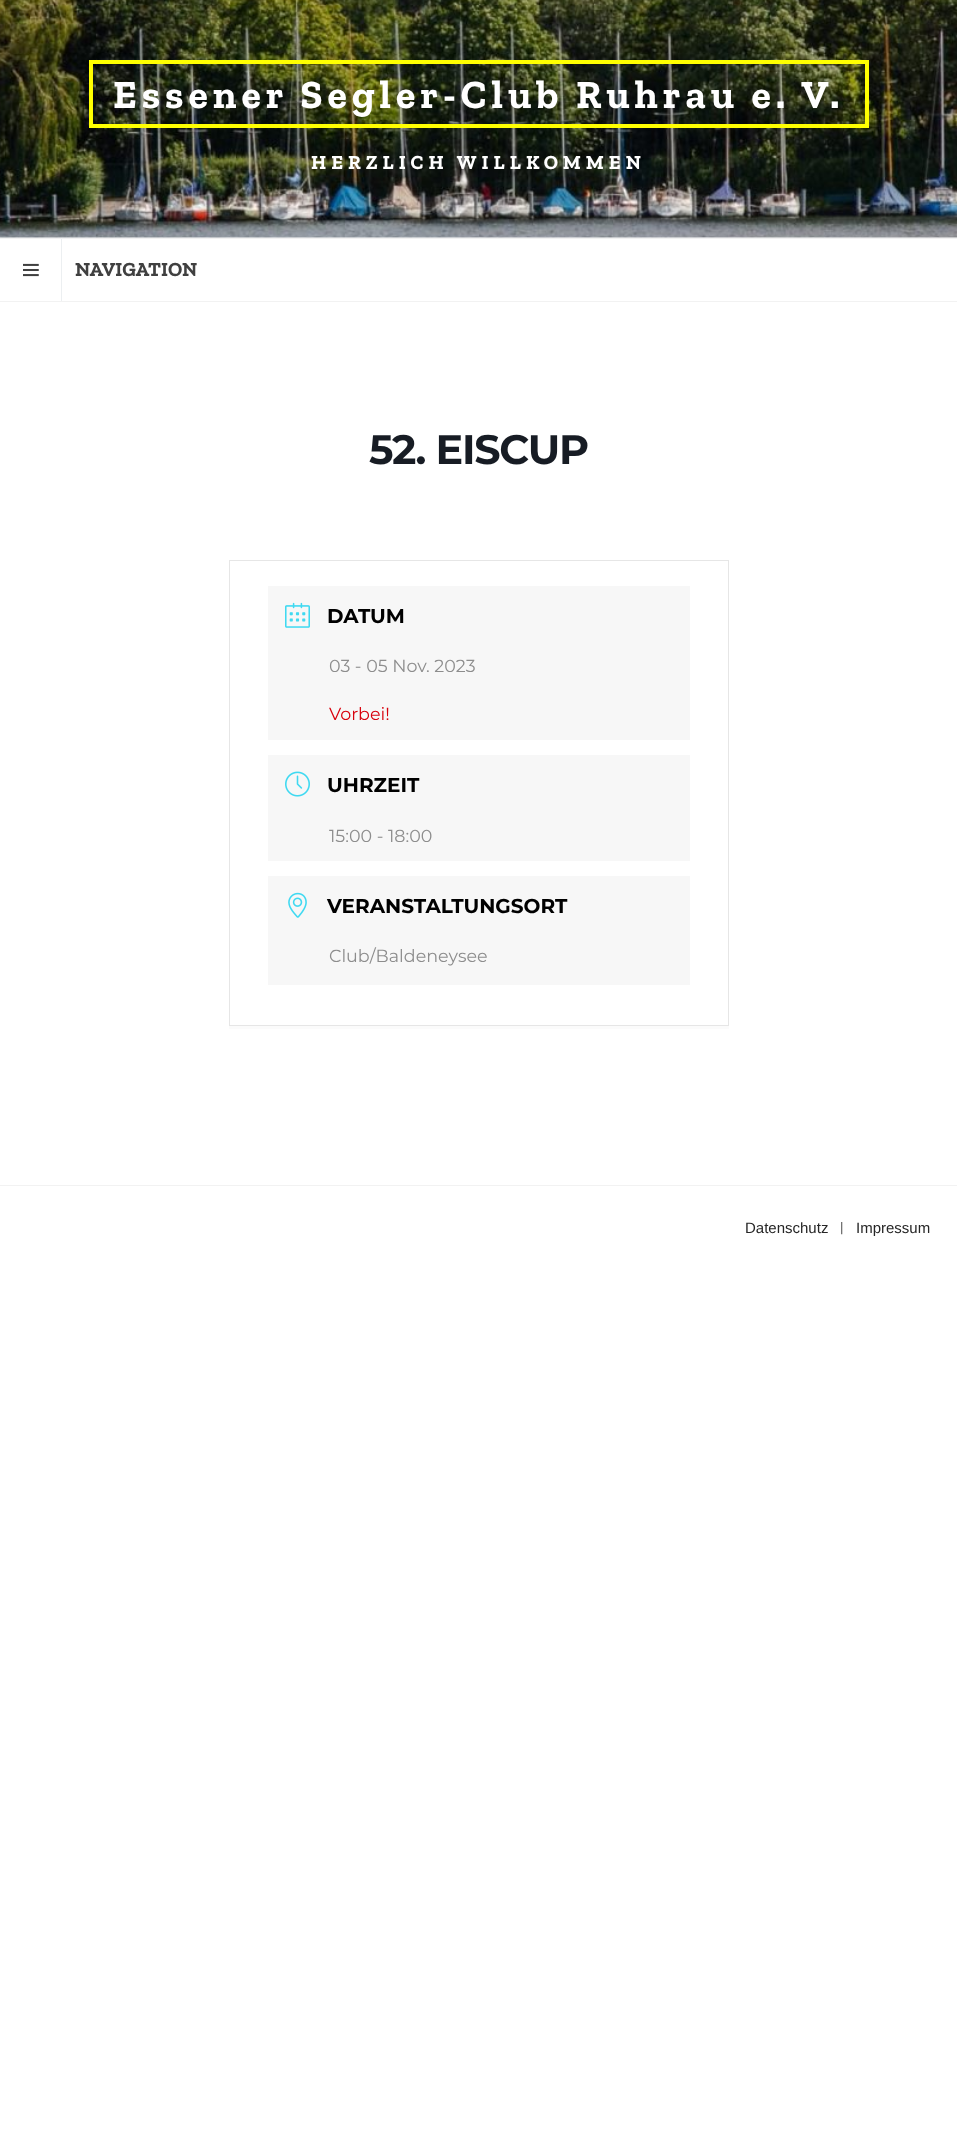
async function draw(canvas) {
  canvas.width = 957
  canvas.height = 2137
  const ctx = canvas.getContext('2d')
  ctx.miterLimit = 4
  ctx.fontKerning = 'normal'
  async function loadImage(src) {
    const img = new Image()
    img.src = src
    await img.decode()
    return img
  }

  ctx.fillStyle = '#fff'
  ctx.fillRect(0, 0, 957, 2137)
  ctx.drawImage(await loadImage('image0.png'), 0, 0, 957, 238)
  ctx.strokeStyle = '#ffff01'
  ctx.lineWidth = 4
  ctx.strokeRect(91, 62, 776, 64)
  ctx.letterSpacing = '5px'
  ctx.font = 'bold 40px Zilla Slab'
  ctx.fillText('Essener Segler-Club Ruhrau e. V.', 113, 108)
  ctx.font = 'bold 20px Zilla Slab'
  ctx.fillText('HERZLICH WILLKOMMEN', 311, 169)
  ctx.fillStyle = '#f2f2f2'
  ctx.fillRect(0, 238, 957, 1)
  ctx.fillRect(0, 301, 957, 1)
  ctx.fillStyle = '#eceff1'
  ctx.fillRect(61, 239, 1, 62)
  ctx.drawImage(await loadImage('image1.png'), 23, 263, 16, 14)
  ctx.letterSpacing = '0px'
  ctx.fillStyle = '#404040'
  ctx.fillText('NAVIGATION', 75, 276)
  ctx.letterSpacing = '-1.25px'
  ctx.font = 'bold 41.25px Montserrat'
  ctx.fillStyle = '#171c24'
  ctx.fillText('52. EISCUP', 369, 464)
  ctx.fillStyle = '#fbfbfb'
  ctx.beginPath()
  ctx.moveTo(229, 1026)
  ctx.lineTo(229, 1029)
  ctx.lineTo(729, 1029)
  ctx.lineTo(729, 563)
  ctx.lineTo(729, 1026)
  ctx.closePath()
  ctx.fill()
  ctx.strokeStyle = '#e6e6e6'
  ctx.lineWidth = 1
  ctx.strokeRect(229.5, 560.5, 499, 465)
  ctx.fillStyle = '#f7f7f7'
  ctx.fillRect(268, 586, 422, 154)
  ctx.drawImage(await loadImage('image2.png'), 285, 602, 25, 26)
  ctx.letterSpacing = '0px'
  ctx.font = 'bold 20px Montserrat'
  ctx.fillStyle = '#000'
  ctx.fillText('DATUM', 327, 623)
  ctx.font = '17.5px Montserrat'
  ctx.fillStyle = '#8d8d8d'
  ctx.fillText('03 - 05 Nov. 2023', 329, 672)
  ctx.fillStyle = '#d8000c'
  ctx.fillText('Vorbei!', 329, 720)
  ctx.fillStyle = '#f7f7f7'
  ctx.fillRect(268, 755, 422, 106)
  ctx.drawImage(await loadImage('image3.png'), 285, 771, 25, 26)
  ctx.font = 'bold 20px Montserrat'
  ctx.fillStyle = '#000'
  ctx.fillText('UHRZEIT', 327, 792)
  ctx.font = '17.5px Montserrat'
  ctx.fillStyle = '#8d8d8d'
  ctx.fillText('15:00 - 18:00', 329, 842)
  ctx.fillStyle = '#f7f7f7'
  ctx.fillRect(268, 876, 422, 109)
  ctx.drawImage(await loadImage('image4.png'), 288, 892, 19, 26)
  ctx.font = 'bold 20px Montserrat'
  ctx.fillStyle = '#000'
  ctx.fillText('VERANSTALTUNGSORT', 327, 913)
  ctx.font = '17.5px Montserrat'
  ctx.fillStyle = '#8d8d8d'
  ctx.fillText('Club/Baldeneysee', 329, 962)
  ctx.fillStyle = '#f2f2f2'
  ctx.fillRect(0, 1185, 957, 1)
  ctx.font = '15px Liberation Sans'
  ctx.fillStyle = '#262626'
  ctx.fillText('Datenschutz', 745, 1233)
  ctx.font = '15px Zilla Slab'
  ctx.fillStyle = '#404040'
  ctx.fillText('|', 840, 1233)
  ctx.font = '15px Liberation Sans'
  ctx.fillStyle = '#262626'
  ctx.fillText('Impressum', 856, 1233)
}

draw(document.querySelector('canvas'))
